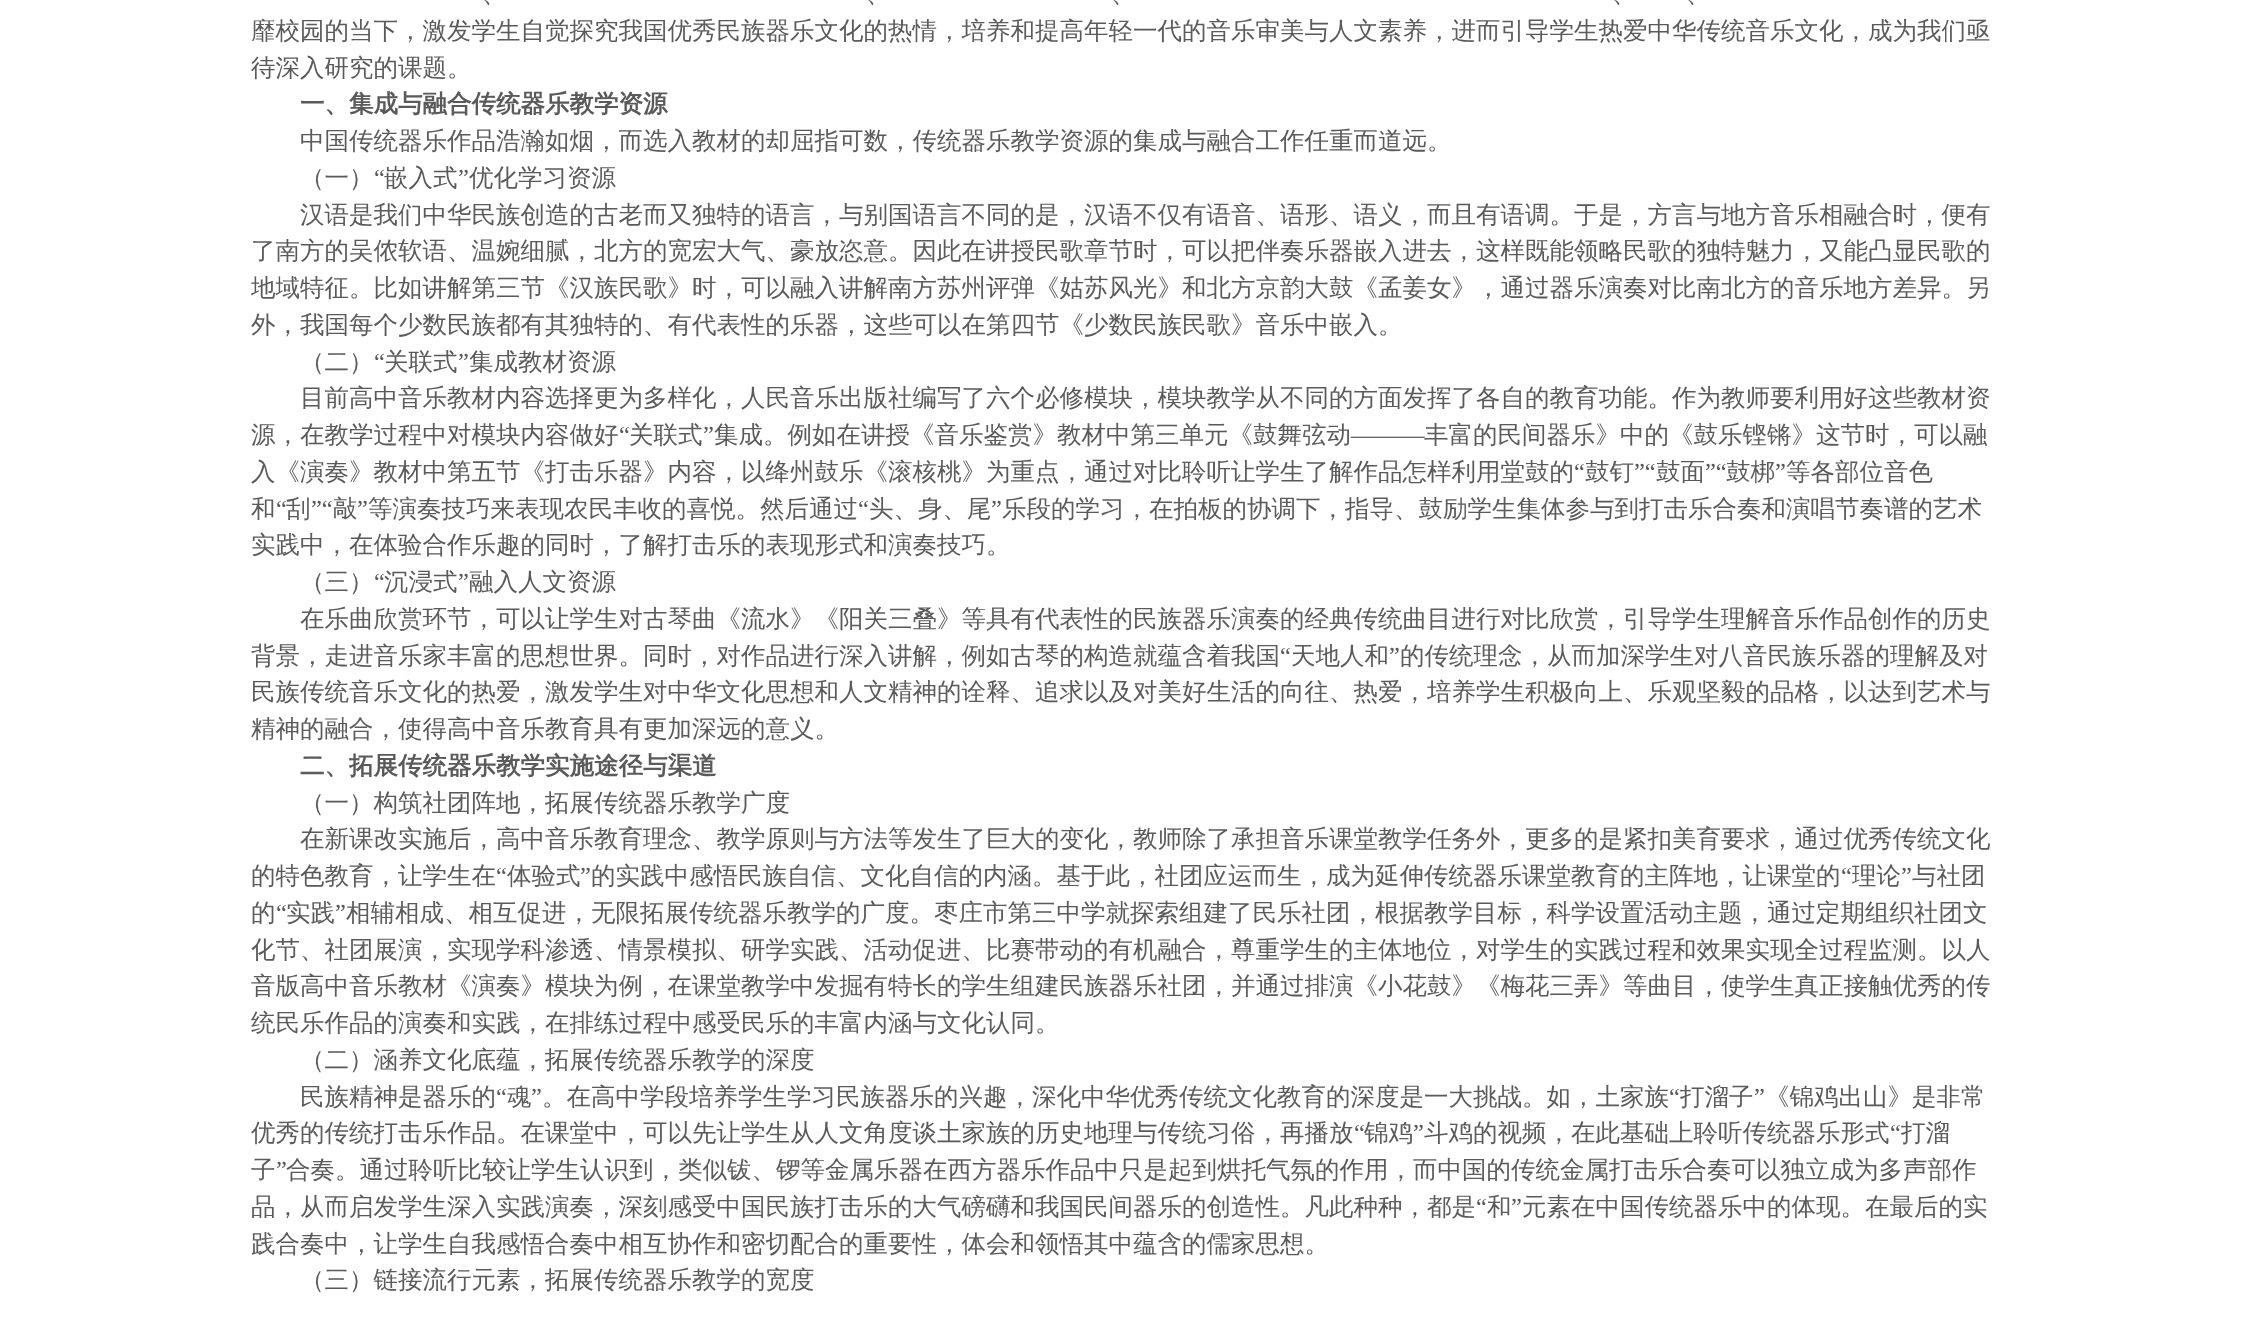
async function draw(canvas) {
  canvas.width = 2251
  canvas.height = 1319
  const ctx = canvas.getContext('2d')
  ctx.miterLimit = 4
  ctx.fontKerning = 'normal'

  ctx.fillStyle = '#fff'
  ctx.fillRect(0, 0, 2251, 1319)
  ctx.font = '500 24.5px WenQuanYi Zen Hei'
  ctx.fillStyle = '#5a5a5a'
  ctx.fillText('、', 482, 2)
  ctx.fillText('、', 866, 2)
  ctx.fillText('、', 1111, 2)
  ctx.fillText('、', 1612, 2)
  ctx.fillText('、', 1686, 2)
  ctx.fillText('靡校园的当下，激发学生自觉探究我国优秀民族器乐文化的热情，培养和提高年轻一代的音乐审美与人文素养，进而引导学生热爱中华传统音乐文化，成为我们亟', 251, 39)
  ctx.fillText('待深入研究的课题。', 251, 76)
  ctx.font = 'bold 24.5px WenQuanYi Zen Hei'
  ctx.fillText('一、集成与融合传统器乐教学资源', 300, 112)
  ctx.font = '500 24.5px WenQuanYi Zen Hei'
  ctx.fillText('中国传统器乐作品浩瀚如烟，而选入教材的却屈指可数，传统器乐教学资源的集成与融合工作任重而道远。', 300, 149)
  ctx.fillText('（一）', 300, 186)
  ctx.font = '24.5px Liberation Serif'
  ctx.fillText('“', 374, 186)
  ctx.font = '500 24.5px WenQuanYi Zen Hei'
  ctx.fillText('嵌入式', 384, 186)
  ctx.font = '24.5px Liberation Serif'
  ctx.fillText('”', 458, 186)
  ctx.font = '500 24.5px WenQuanYi Zen Hei'
  ctx.fillText('优化学习资源', 469, 186)
  ctx.fillText('汉语是我们中华民族创造的古老而又独特的语言，与别国语言不同的是，汉语不仅有语音、语形、语义，而且有语调。于是，方言与地方音乐相融合时，便有', 300, 223)
  ctx.fillText('了南方的吴侬软语、温婉细腻，北方的宽宏大气、豪放恣意。因此在讲授民歌章节时，可以把伴奏乐器嵌入进去，这样既能领略民歌的独特魅力，又能凸显民歌的', 251, 259)
  ctx.fillText('地域特征。比如讲解第三节《汉族民歌》时，可以融入讲解南方苏州评弹《姑苏风光》和北方京韵大鼓《孟姜女》，通过器乐演奏对比南北方的音乐地方差异。另', 251, 296)
  ctx.fillText('外，我国每个少数民族都有其独特的、有代表性的乐器，这些可以在第四节《少数民族民歌》音乐中嵌入。', 251, 333)
  ctx.fillText('（二）', 300, 370)
  ctx.font = '24.5px Liberation Serif'
  ctx.fillText('“', 374, 370)
  ctx.font = '500 24.5px WenQuanYi Zen Hei'
  ctx.fillText('关联式', 384, 370)
  ctx.font = '24.5px Liberation Serif'
  ctx.fillText('”', 458, 370)
  ctx.font = '500 24.5px WenQuanYi Zen Hei'
  ctx.fillText('集成教材资源', 469, 370)
  ctx.fillText('目前高中音乐教材内容选择更为多样化，人民音乐出版社编写了六个必修模块，模块教学从不同的方面发挥了各自的教育功能。作为教师要利用好这些教材资', 300, 406)
  ctx.fillText('源，在教学过程中对模块内容做好', 251, 443)
  ctx.font = '24.5px Liberation Serif'
  ctx.fillText('“', 619, 443)
  ctx.font = '500 24.5px WenQuanYi Zen Hei'
  ctx.fillText('关联式', 629, 443)
  ctx.font = '24.5px Liberation Serif'
  ctx.fillText('”', 703, 443)
  ctx.font = '500 24.5px WenQuanYi Zen Hei'
  ctx.fillText('集成。例如在讲授《音乐鉴赏》教材中第三单元《鼓舞弦动', 714, 443)
  ctx.font = '24.5px Liberation Serif'
  ctx.fillText('———', 1351, 443)
  ctx.font = '500 24.5px WenQuanYi Zen Hei'
  ctx.fillText('丰富的民间器乐》中的《鼓乐铿锵》这节时，可以融', 1424, 443)
  ctx.fillText('入《演奏》教材中第五节《打击乐器》内容，以绛州鼓乐《滚核桃》为重点，通过对比聆听让学生了解作品怎样利用堂鼓的', 251, 480)
  ctx.font = '24.5px Liberation Serif'
  ctx.fillText('“', 1574, 480)
  ctx.font = '500 24.5px WenQuanYi Zen Hei'
  ctx.fillText('鼓钉', 1585, 480)
  ctx.font = '24.5px Liberation Serif'
  ctx.fillText('”“', 1634, 480)
  ctx.font = '500 24.5px WenQuanYi Zen Hei'
  ctx.fillText('鼓面', 1656, 480)
  ctx.font = '24.5px Liberation Serif'
  ctx.fillText('”“', 1705, 480)
  ctx.font = '500 24.5px WenQuanYi Zen Hei'
  ctx.fillText('鼓梆', 1726, 480)
  ctx.font = '24.5px Liberation Serif'
  ctx.fillText('”', 1775, 480)
  ctx.font = '500 24.5px WenQuanYi Zen Hei'
  ctx.fillText('等各部位音色', 1786, 480)
  ctx.fillText('和', 251, 517)
  ctx.font = '24.5px Liberation Serif'
  ctx.fillText('“', 276, 517)
  ctx.font = '500 24.5px WenQuanYi Zen Hei'
  ctx.fillText('刮', 286, 517)
  ctx.font = '24.5px Liberation Serif'
  ctx.fillText('”“', 311, 517)
  ctx.font = '500 24.5px WenQuanYi Zen Hei'
  ctx.fillText('敲', 333, 517)
  ctx.font = '24.5px Liberation Serif'
  ctx.fillText('”', 357, 517)
  ctx.font = '500 24.5px WenQuanYi Zen Hei'
  ctx.fillText('等演奏技巧来表现农民丰收的喜悦。然后通过', 368, 517)
  ctx.font = '24.5px Liberation Serif'
  ctx.fillText('“', 858, 517)
  ctx.font = '500 24.5px WenQuanYi Zen Hei'
  ctx.fillText('头、身、尾', 869, 517)
  ctx.font = '24.5px Liberation Serif'
  ctx.fillText('”', 991, 517)
  ctx.font = '500 24.5px WenQuanYi Zen Hei'
  ctx.fillText('乐段的学习，在拍板的协调下，指导、鼓励学生集体参与到打击乐合奏和演唱节奏谱的艺术', 1002, 517)
  ctx.fillText('实践中，在体验合作乐趣的同时，了解打击乐的表现形式和演奏技巧。', 251, 553)
  ctx.fillText('（三）', 300, 590)
  ctx.font = '24.5px Liberation Serif'
  ctx.fillText('“', 374, 590)
  ctx.font = '500 24.5px WenQuanYi Zen Hei'
  ctx.fillText('沉浸式', 384, 590)
  ctx.font = '24.5px Liberation Serif'
  ctx.fillText('”', 458, 590)
  ctx.font = '500 24.5px WenQuanYi Zen Hei'
  ctx.fillText('融入人文资源', 469, 590)
  ctx.fillText('在乐曲欣赏环节，可以让学生对古琴曲《流水》《阳关三叠》等具有代表性的民族器乐演奏的经典传统曲目进行对比欣赏，引导学生理解音乐作品创作的历史', 300, 627)
  ctx.fillText('背景，走进音乐家丰富的思想世界。同时，对作品进行深入讲解，例如古琴的构造就蕴含着我国', 251, 664)
  ctx.font = '24.5px Liberation Serif'
  ctx.fillText('“', 1280, 664)
  ctx.font = '500 24.5px WenQuanYi Zen Hei'
  ctx.fillText('天地人和', 1291, 664)
  ctx.font = '24.5px Liberation Serif'
  ctx.fillText('”', 1389, 664)
  ctx.font = '500 24.5px WenQuanYi Zen Hei'
  ctx.fillText('的传统理念，从而加深学生对八音民族乐器的理解及对', 1400, 664)
  ctx.fillText('民族传统音乐文化的热爱，激发学生对中华文化思想和人文精神的诠释、追求以及对美好生活的向往、热爱，培养学生积极向上、乐观坚毅的品格，以达到艺术与', 251, 700)
  ctx.fillText('精神的融合，使得高中音乐教育具有更加深远的意义。', 251, 737)
  ctx.font = 'bold 24.5px WenQuanYi Zen Hei'
  ctx.fillText('二、拓展传统器乐教学实施途径与渠道', 300, 774)
  ctx.font = '500 24.5px WenQuanYi Zen Hei'
  ctx.fillText('（一）构筑社团阵地，拓展传统器乐教学广度', 300, 811)
  ctx.fillText('在新课改实施后，高中音乐教育理念、教学原则与方法等发生了巨大的变化，教师除了承担音乐课堂教学任务外，更多的是紧扣美育要求，通过优秀传统文化', 300, 847)
  ctx.fillText('的特色教育，让学生在', 251, 884)
  ctx.font = '24.5px Liberation Serif'
  ctx.fillText('“', 496, 884)
  ctx.font = '500 24.5px WenQuanYi Zen Hei'
  ctx.fillText('体验式', 507, 884)
  ctx.font = '24.5px Liberation Serif'
  ctx.fillText('”', 580, 884)
  ctx.font = '500 24.5px WenQuanYi Zen Hei'
  ctx.fillText('的实践中感悟民族自信、文化自信的内涵。基于此，社团应运而生，成为延伸传统器乐课堂教育的主阵地，让课堂的', 591, 884)
  ctx.font = '24.5px Liberation Serif'
  ctx.fillText('“', 1841, 884)
  ctx.font = '500 24.5px WenQuanYi Zen Hei'
  ctx.fillText('理论', 1852, 884)
  ctx.font = '24.5px Liberation Serif'
  ctx.fillText('”', 1901, 884)
  ctx.font = '500 24.5px WenQuanYi Zen Hei'
  ctx.fillText('与社团', 1912, 884)
  ctx.fillText('的', 251, 921)
  ctx.font = '24.5px Liberation Serif'
  ctx.fillText('“', 276, 921)
  ctx.font = '500 24.5px WenQuanYi Zen Hei'
  ctx.fillText('实践', 286, 921)
  ctx.font = '24.5px Liberation Serif'
  ctx.fillText('”', 335, 921)
  ctx.font = '500 24.5px WenQuanYi Zen Hei'
  ctx.fillText('相辅相成、相互促进，无限拓展传统器乐教学的广度。枣庄市第三中学就探索组建了民乐社团，根据教学目标，科学设置活动主题，通过定期组织社团文', 346, 921)
  ctx.fillText('化节、社团展演，实现学科渗透、情景模拟、研学实践、活动促进、比赛带动的有机融合，尊重学生的主体地位，对学生的实践过程和效果实现全过程监测。以人', 251, 958)
  ctx.fillText('音版高中音乐教材《演奏》模块为例，在课堂教学中发掘有特长的学生组建民族器乐社团，并通过排演《小花鼓》《梅花三弄》等曲目，使学生真正接触优秀的传', 251, 994)
  ctx.fillText('统民乐作品的演奏和实践，在排练过程中感受民乐的丰富内涵与文化认同。', 251, 1031)
  ctx.fillText('（二）涵养文化底蕴，拓展传统器乐教学的深度', 300, 1068)
  ctx.fillText('民族精神是器乐的', 300, 1105)
  ctx.font = '24.5px Liberation Serif'
  ctx.fillText('“', 496, 1105)
  ctx.font = '500 24.5px WenQuanYi Zen Hei'
  ctx.fillText('魂', 507, 1105)
  ctx.font = '24.5px Liberation Serif'
  ctx.fillText('”', 531, 1105)
  ctx.font = '500 24.5px WenQuanYi Zen Hei'
  ctx.fillText('。在高中学段培养学生学习民族器乐的兴趣，深化中华优秀传统文化教育的深度是一大挑战。如，土家族', 542, 1105)
  ctx.font = '24.5px Liberation Serif'
  ctx.fillText('“', 1669, 1105)
  ctx.font = '500 24.5px WenQuanYi Zen Hei'
  ctx.fillText('打溜子', 1680, 1105)
  ctx.font = '24.5px Liberation Serif'
  ctx.fillText('”', 1754, 1105)
  ctx.font = '500 24.5px WenQuanYi Zen Hei'
  ctx.fillText('《锦鸡出山》是非常', 1765, 1105)
  ctx.fillText('优秀的传统打击乐作品。在课堂中，可以先让学生从人文角度谈土家族的历史地理与传统习俗，再播放', 251, 1141)
  ctx.font = '24.5px Liberation Serif'
  ctx.fillText('“', 1354, 1141)
  ctx.font = '500 24.5px WenQuanYi Zen Hei'
  ctx.fillText('锦鸡', 1364, 1141)
  ctx.font = '24.5px Liberation Serif'
  ctx.fillText('”', 1413, 1141)
  ctx.font = '500 24.5px WenQuanYi Zen Hei'
  ctx.fillText('斗鸡的视频，在此基础上聆听传统器乐形式', 1424, 1141)
  ctx.font = '24.5px Liberation Serif'
  ctx.fillText('“', 1890, 1141)
  ctx.font = '500 24.5px WenQuanYi Zen Hei'
  ctx.fillText('打溜', 1901, 1141)
  ctx.fillText('子', 251, 1178)
  ctx.font = '24.5px Liberation Serif'
  ctx.fillText('”', 276, 1178)
  ctx.font = '500 24.5px WenQuanYi Zen Hei'
  ctx.fillText('合奏。通过聆听比较让学生认识到，类似钹、锣等金属乐器在西方器乐作品中只是起到烘托气氛的作用，而中国的传统金属打击乐合奏可以独立成为多声部作', 286, 1178)
  ctx.fillText('品，从而启发学生深入实践演奏，深刻感受中国民族打击乐的大气磅礴和我国民间器乐的创造性。凡此种种，都是', 251, 1215)
  ctx.font = '24.5px Liberation Serif'
  ctx.fillText('“', 1476, 1215)
  ctx.font = '500 24.5px WenQuanYi Zen Hei'
  ctx.fillText('和', 1487, 1215)
  ctx.font = '24.5px Liberation Serif'
  ctx.fillText('”', 1511, 1215)
  ctx.font = '500 24.5px WenQuanYi Zen Hei'
  ctx.fillText('元素在中国传统器乐中的体现。在最后的实', 1522, 1215)
  ctx.fillText('践合奏中，让学生自我感悟合奏中相互协作和密切配合的重要性，体会和领悟其中蕴含的儒家思想。', 251, 1252)
  ctx.fillText('（三）链接流行元素，拓展传统器乐教学的宽度', 300, 1288)
}

draw(document.querySelector('canvas'))
